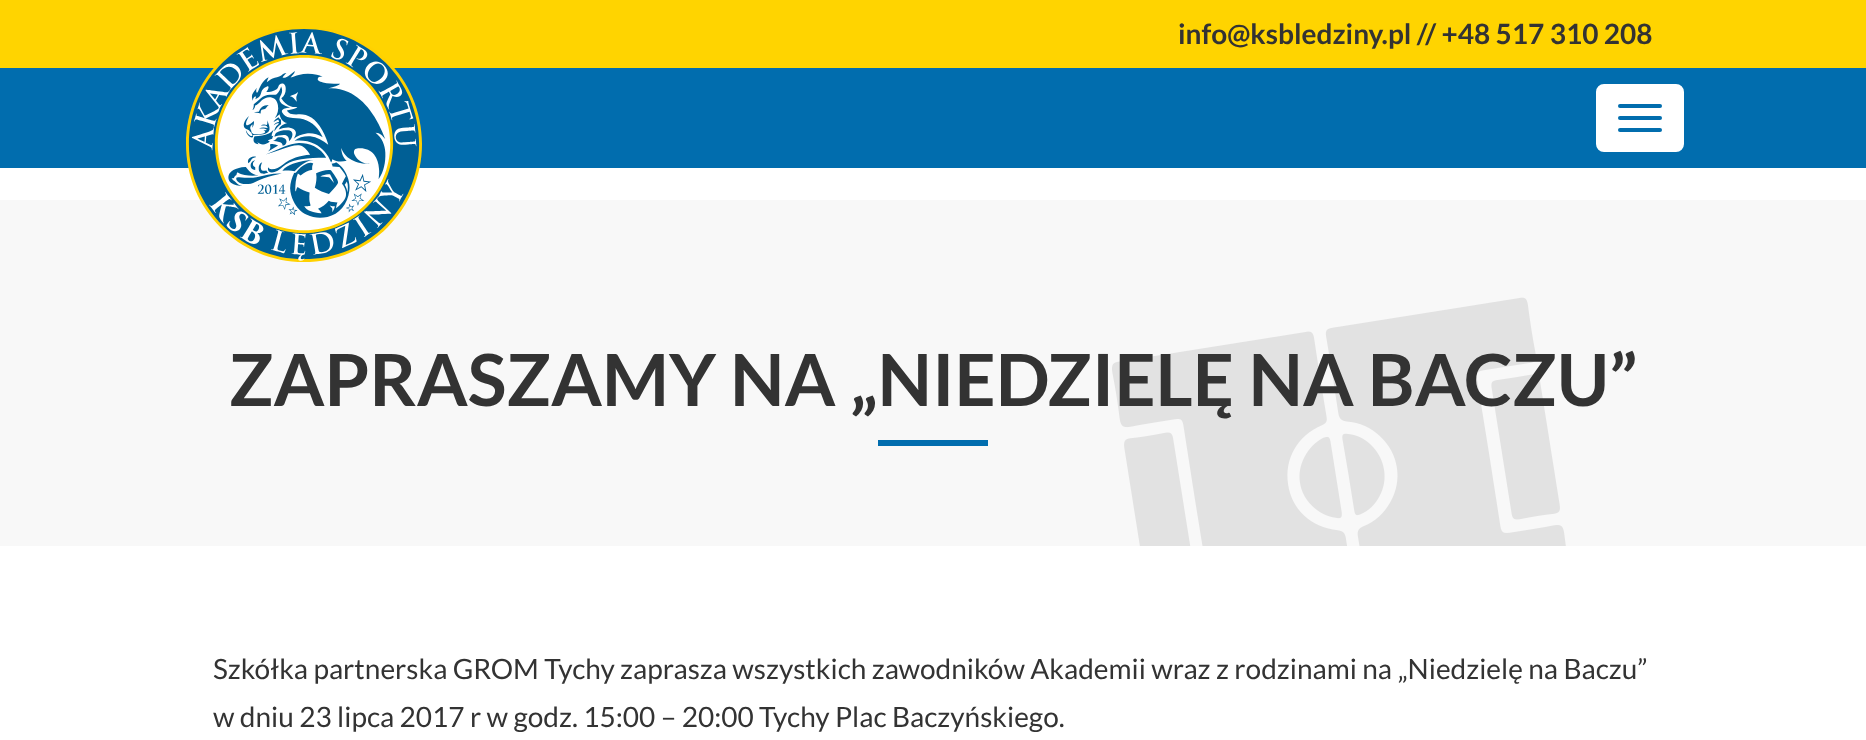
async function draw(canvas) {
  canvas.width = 1866
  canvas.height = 740
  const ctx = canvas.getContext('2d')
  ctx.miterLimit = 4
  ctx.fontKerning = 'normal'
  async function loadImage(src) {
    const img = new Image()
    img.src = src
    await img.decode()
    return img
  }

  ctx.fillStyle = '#fff'
  ctx.fillRect(0, 0, 1866, 740)
  ctx.fillStyle = '#ffd400'
  ctx.fillRect(0, 0, 1866, 68)
  ctx.font = 'bold 28px Lato'
  ctx.fillStyle = '#333'
  ctx.fillText('info@ksbledziny.pl // +48 517 310 208', 1178, 44)
  ctx.fillStyle = '#016dae'
  ctx.fillRect(0, 68, 1866, 100)
  ctx.fillStyle = '#f8f8f8'
  ctx.fillRect(0, 200, 1866, 346)
  ctx.drawImage(await loadImage('image0.png'), 186, 29, 236, 233)
  ctx.fillStyle = '#fff'
  ctx.beginPath()
  ctx.roundRect(1597, 85, 86, 66, 7)
  ctx.fill()
  ctx.strokeStyle = '#fff'
  ctx.lineWidth = 2
  ctx.stroke()
  ctx.fillStyle = '#016dae'
  ctx.beginPath()
  ctx.roundRect(1618, 104, 44, 4, 2)
  ctx.fill()
  ctx.beginPath()
  ctx.roundRect(1618, 116, 44, 4, 2)
  ctx.fill()
  ctx.beginPath()
  ctx.roundRect(1618, 128, 44, 4, 2)
  ctx.fill()
  ctx.drawImage(await loadImage('image1.png'), 1112, 297, 454, 249)
  ctx.font = 'bold 72px Lato'
  ctx.fillStyle = '#333'
  ctx.fillText('ZAPRASZAMY NA „NIEDZIELĘ NA BACZU”', 229, 406)
  ctx.fillStyle = '#016dae'
  ctx.fillRect(878, 440, 110, 6)
  ctx.font = '28px Lato'
  ctx.fillStyle = '#333'
  ctx.fillText('Szkółka partnerska GROM Tychy zaprasza wszystkich zawodników Akademii wraz z rodzinami na „Niedzielę na Baczu”', 213, 679)
  ctx.fillText('w dniu 23 lipca 2017 r w godz. 15:00 – 20:00 Tychy Plac Baczyńskiego.', 213, 727)
}

draw(document.querySelector('canvas'))
